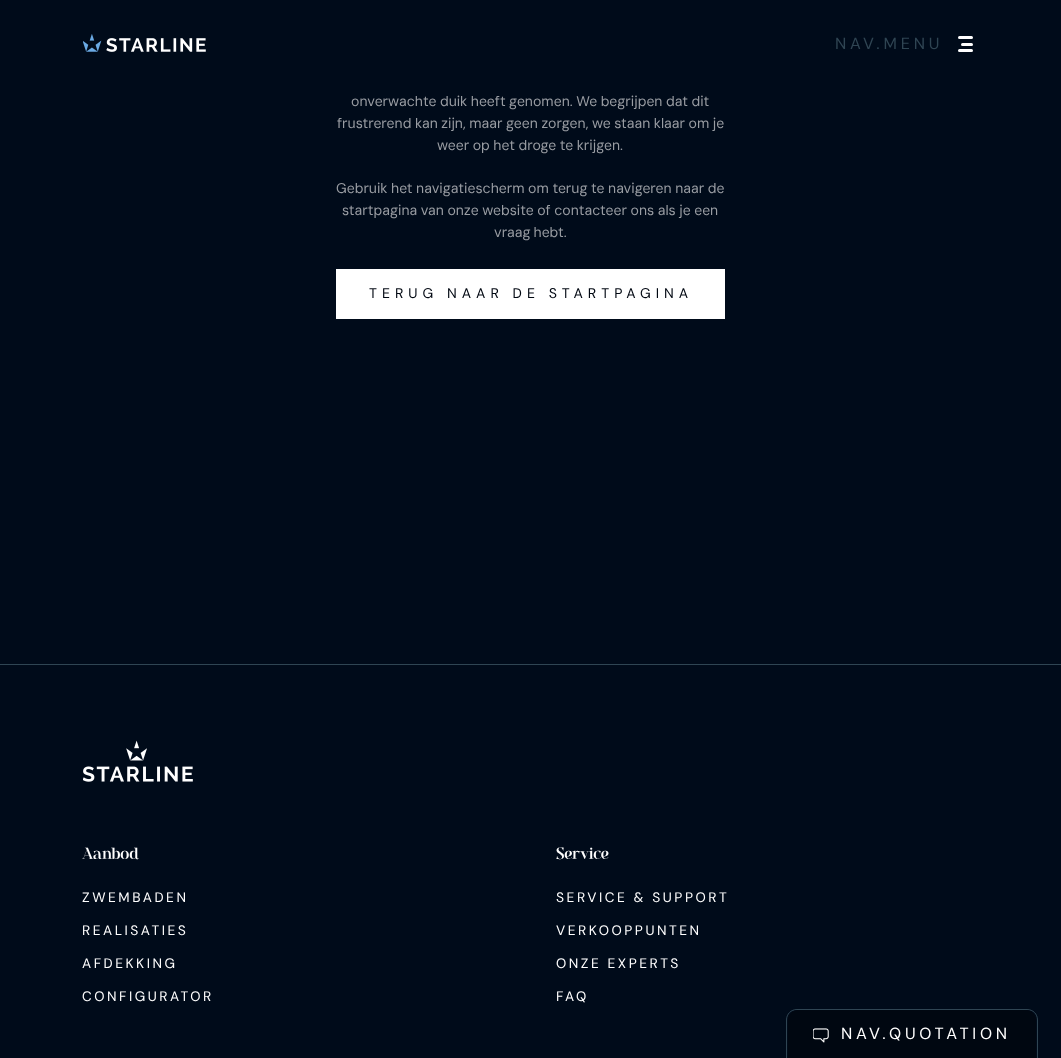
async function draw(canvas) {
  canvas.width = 1061
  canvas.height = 1058
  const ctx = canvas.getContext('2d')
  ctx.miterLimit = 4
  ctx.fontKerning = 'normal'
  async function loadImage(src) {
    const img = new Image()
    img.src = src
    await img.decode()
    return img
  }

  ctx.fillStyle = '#000b1a'
  ctx.fillRect(0, 0, 1061, 1058)
  ctx.wordSpacing = '-0.25px'
  ctx.font = '14.05px DM Sans'
  ctx.fillStyle = '#999da3'
  ctx.fillText('onverwachte duik heeft genomen. We begrijpen dat dit', 351, 106)
  ctx.fillText('frustrerend kan zijn, maar geen zorgen, we staan klaar om je', 337, 128)
  ctx.fillText('weer op het droge te krijgen.', 437, 150)
  ctx.fillText('Gebruik het navigatiescherm om terug te navigeren naar de', 336, 193)
  ctx.fillText('startpagina van onze website of contacteer ons als je een', 342, 215)
  ctx.wordSpacing = '-1px'
  ctx.fillText('vraag hebt.', 494, 237)
  ctx.fillStyle = '#fff'
  ctx.fillRect(336, 269, 389, 50)
  ctx.letterSpacing = '5px'
  ctx.wordSpacing = '0px'
  ctx.fillStyle = '#000711'
  ctx.fillText('TERUG NAAR DE STARTPAGINA', 369, 298)
  ctx.drawImage(await loadImage('image0.png'), 83, 34, 123, 18)
  ctx.letterSpacing = '3.75px'
  ctx.font = '16.25px DM Sans'
  ctx.fillStyle = '#2f4553'
  ctx.fillText('NAV.MENU', 835, 49)
  ctx.fillStyle = '#fff'
  ctx.beginPath()
  ctx.roundRect(958, 36, 15, 3, 1.5)
  ctx.fill()
  ctx.beginPath()
  ctx.roundRect(961, 43, 12, 3, 1.5)
  ctx.fill()
  ctx.beginPath()
  ctx.roundRect(958, 49, 15, 3, 1.5)
  ctx.fill()
  ctx.beginPath()
  ctx.moveTo(797, 1009.5)
  ctx.lineTo(1027, 1009.5)
  ctx.bezierCurveTo(1033, 1009.5, 1037.5, 1014, 1037.5, 1020)
  ctx.lineTo(1037.5, 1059.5)
  ctx.lineTo(786.5, 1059.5)
  ctx.lineTo(786.5, 1020)
  ctx.bezierCurveTo(786.5, 1014, 791, 1009.5, 797, 1009.5)
  ctx.closePath()
  ctx.strokeStyle = '#2f4553'
  ctx.stroke()
  ctx.fillStyle = '#000711e6'
  ctx.beginPath()
  ctx.moveTo(798, 1010)
  ctx.lineTo(1026, 1010)
  ctx.bezierCurveTo(1031.5, 1010, 1036, 1014.5, 1036, 1020)
  ctx.lineTo(1036, 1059)
  ctx.lineTo(788, 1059)
  ctx.lineTo(788, 1020)
  ctx.bezierCurveTo(788, 1014.5, 792.5, 1010, 798, 1010)
  ctx.closePath()
  ctx.fill()
  ctx.drawImage(await loadImage('image1.png'), 813, 1028, 16, 15)
  ctx.fillStyle = '#fff'
  ctx.fillText('NAV.QUOTATION', 841, 1039)
  ctx.fillStyle = '#2f4553'
  ctx.fillRect(0, 664, 1061, 1)
  ctx.drawImage(await loadImage('image2.png'), 83, 740, 110, 42)
  ctx.letterSpacing = '0px'
  ctx.font = '16.25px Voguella'
  ctx.fillStyle = '#fff'
  ctx.fillText('Aanbod', 82, 859)
  ctx.letterSpacing = '2.5px'
  ctx.font = '13.75px DM Sans'
  ctx.fillText('ZWEMBADEN', 82, 902)
  ctx.fillText('REALISATIES', 82, 935)
  ctx.fillText('AFDEKKING', 82, 968)
  ctx.fillText('CONFIGURATOR', 82, 1001)
  ctx.letterSpacing = '0px'
  ctx.font = '16.25px Voguella'
  ctx.fillText('Service', 556, 859)
  ctx.letterSpacing = '2.5px'
  ctx.font = '13.75px DM Sans'
  ctx.fillText('SERVICE & SUPPORT', 556, 902)
  ctx.fillText('VERKOOPPUNTEN', 556, 935)
  ctx.fillText('ONZE EXPERTS', 556, 968)
  ctx.fillText('FAQ', 556, 1001)
}

draw(document.querySelector('canvas'))
